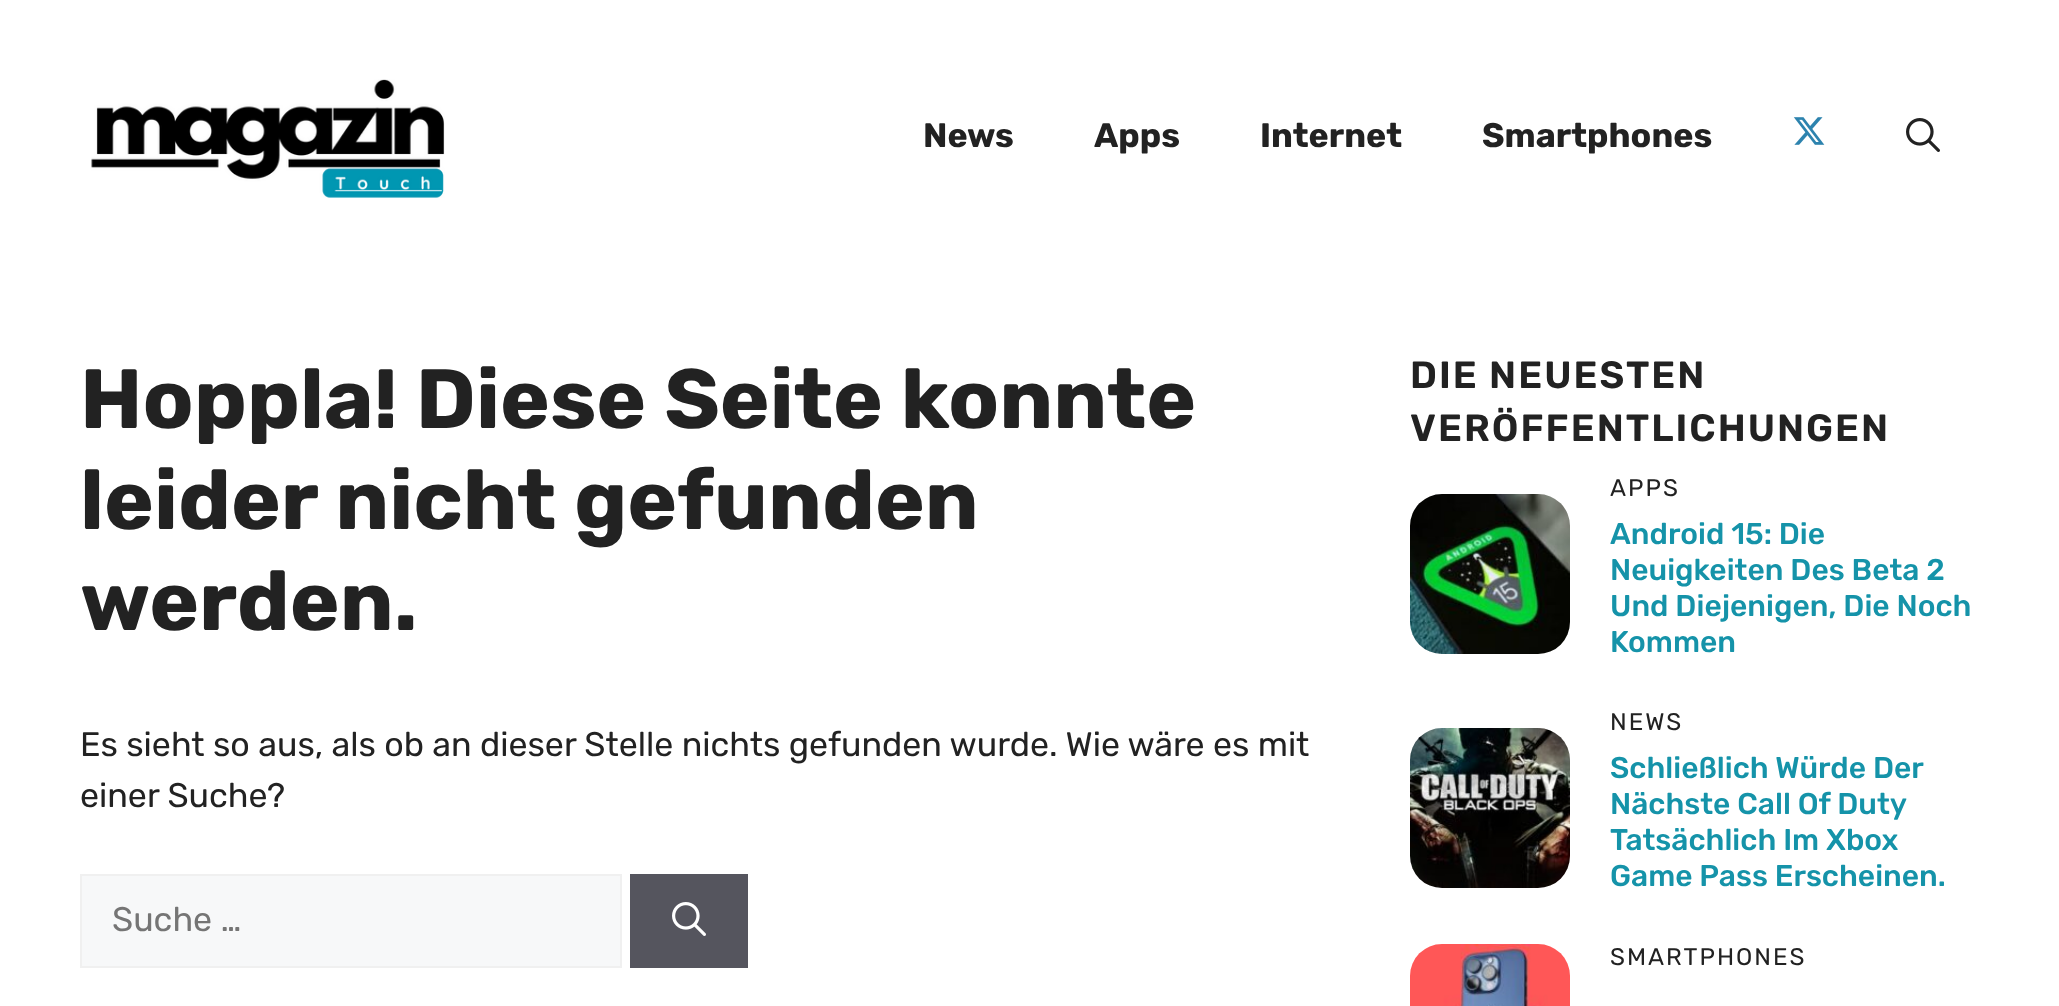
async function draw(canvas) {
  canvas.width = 2059
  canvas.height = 1006
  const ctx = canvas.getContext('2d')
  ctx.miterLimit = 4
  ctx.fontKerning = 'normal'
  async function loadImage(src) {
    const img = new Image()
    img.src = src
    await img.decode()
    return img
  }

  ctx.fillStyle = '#fff'
  ctx.fillRect(0, 0, 2059, 1006)
  ctx.drawImage(await loadImage('image0.png'), 91, 79, 354, 119)
  ctx.font = 'bold 34px Rubik'
  ctx.fillStyle = '#222'
  ctx.fillText('News', 923, 147)
  ctx.fillText('Apps', 1094, 147)
  ctx.fillText('Internet', 1260, 147)
  ctx.fillText('Smartphones', 1482, 147)
  ctx.drawImage(await loadImage('image1.png'), 1793, 117, 32, 28)
  ctx.drawImage(await loadImage('image2.png'), 1906, 118, 34, 34)
  ctx.font = 'bold 84px Rubik'
  ctx.fillText('Hoppla! Diese Seite konnte', 80, 428)
  ctx.fillText('leider nicht gefunden', 80, 529)
  ctx.fillText('werden.', 80, 630)
  ctx.font = '34px Rubik'
  ctx.fillText('Es sieht so aus, als ob an dieser Stelle nichts gefunden wurde. Wie wäre es mit', 80, 756)
  ctx.fillText('einer Suche?', 80, 807)
  ctx.fillStyle = '#f7f8f9'
  ctx.beginPath()
  ctx.rect(81, 875, 540, 92)
  ctx.fill()
  ctx.strokeStyle = '#f0f0f0'
  ctx.lineWidth = 2
  ctx.stroke()
  ctx.fillStyle = '#757575'
  ctx.fillText('Suche …', 112, 931)
  ctx.fillStyle = '#55555e'
  ctx.fillRect(630, 874, 118, 94)
  ctx.drawImage(await loadImage('image3.png'), 672, 902, 34, 34)
  ctx.letterSpacing = '2px'
  ctx.font = '600 38px Rubik'
  ctx.fillStyle = '#222'
  ctx.fillText('DIE NEUESTEN', 1410, 388)
  ctx.fillText('VERÖFFENTLICHUNGEN', 1410, 441)
  ctx.drawImage(await loadImage('image4.png'), 1410, 494, 160, 160)
  ctx.font = '24px Rubik'
  ctx.fillText('APPS', 1610, 496)
  ctx.letterSpacing = '0px'
  ctx.font = '500 30px Rubik'
  ctx.fillStyle = '#1593a9'
  ctx.fillText('Android 15: Die', 1610, 544)
  ctx.fillText('Neuigkeiten Des Beta 2', 1610, 580)
  ctx.fillText('Und Diejenigen, Die Noch', 1610, 616)
  ctx.fillText('Kommen', 1610, 652)
  ctx.drawImage(await loadImage('image5.png'), 1410, 728, 160, 160)
  ctx.letterSpacing = '2px'
  ctx.font = '24px Rubik'
  ctx.fillStyle = '#222'
  ctx.fillText('NEWS', 1610, 730)
  ctx.letterSpacing = '0px'
  ctx.font = '500 30px Rubik'
  ctx.fillStyle = '#1593a9'
  ctx.fillText('Schließlich Würde Der', 1610, 778)
  ctx.fillText('Nächste Call Of Duty', 1610, 814)
  ctx.fillText('Tatsächlich Im Xbox', 1610, 850)
  ctx.fillText('Game Pass Erscheinen.', 1610, 886)
  ctx.drawImage(await loadImage('image6.png'), 1410, 944, 160, 62)
  ctx.letterSpacing = '2px'
  ctx.font = '24px Rubik'
  ctx.fillStyle = '#222'
  ctx.fillText('SMARTPHONES', 1610, 965)
}

draw(document.querySelector('canvas'))
